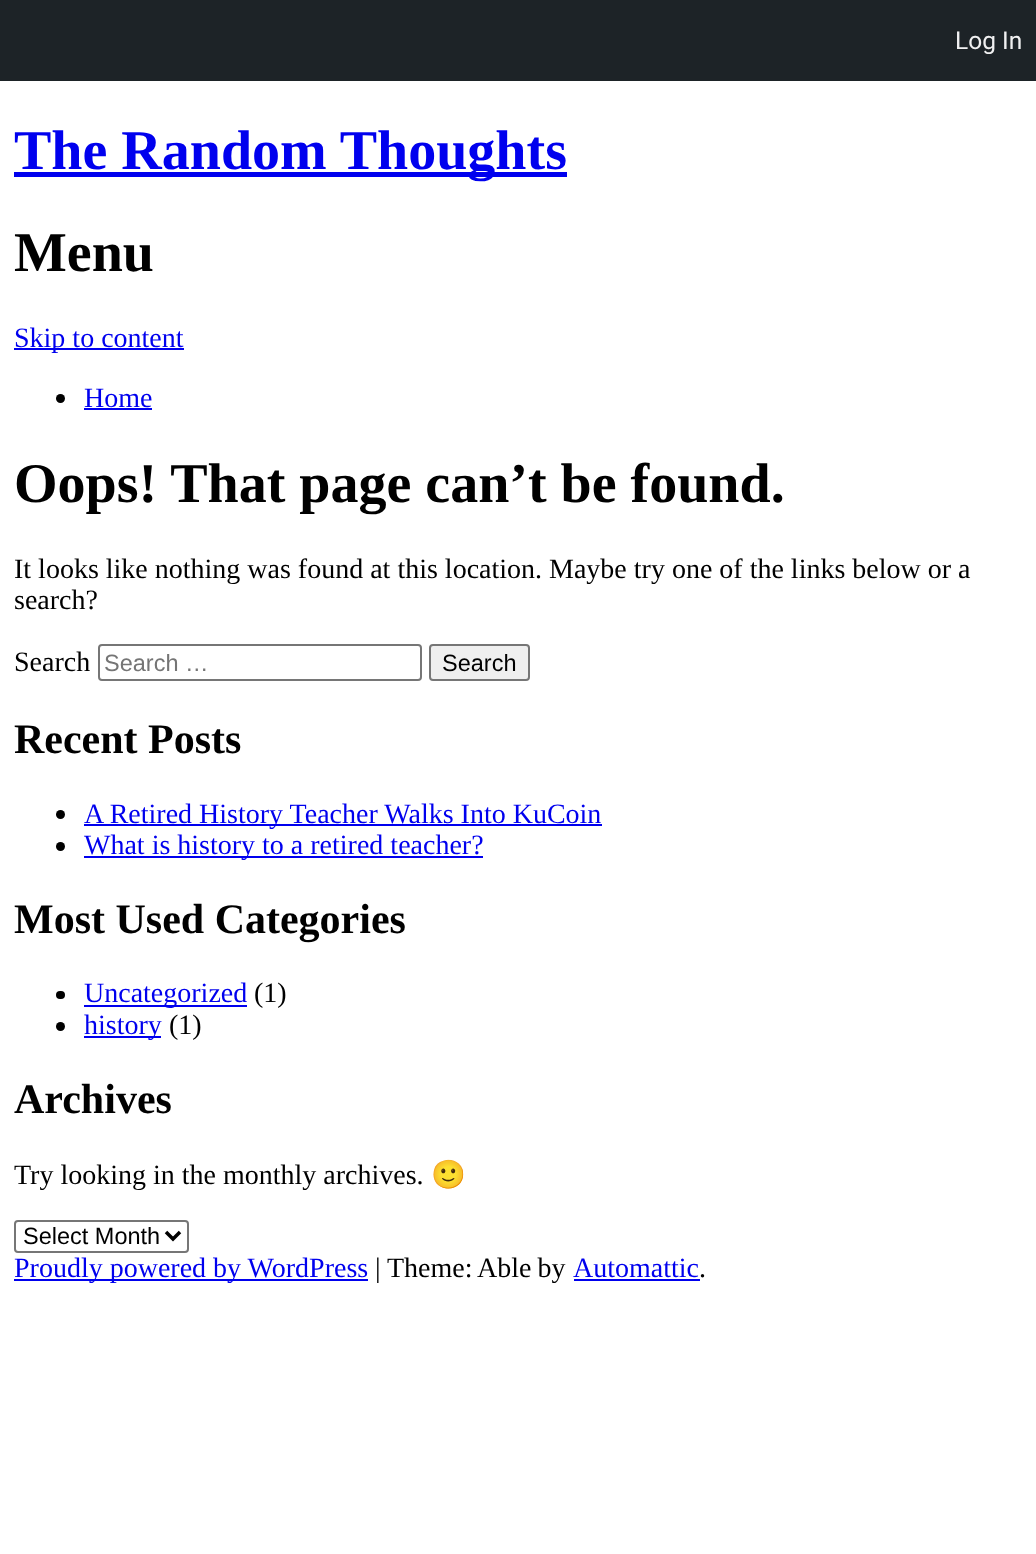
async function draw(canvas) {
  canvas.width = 1036
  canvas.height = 1554
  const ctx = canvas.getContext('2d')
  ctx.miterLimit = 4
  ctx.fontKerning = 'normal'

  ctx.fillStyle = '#fff'
  ctx.fillRect(0, 0, 1036, 1554)
  ctx.fillStyle = '#1d2327'
  ctx.fillRect(0, 0, 1036, 81)
  ctx.font = '24.5px Roboto'
  ctx.fillStyle = '#f0f0f1'
  ctx.fillText('Log In', 955, 49)
  ctx.fillStyle = '#00e'
  ctx.fillRect(14, 172, 553, 5)
  ctx.font = 'bold 56px Liberation Serif'
  ctx.fillText('The Random Thoughts', 14, 169)
  ctx.fillStyle = '#000'
  ctx.fillText('Menu', 14, 271)
  ctx.fillStyle = '#00e'
  ctx.fillRect(14, 348, 170, 2)
  ctx.font = '28px Liberation Serif'
  ctx.fillText('Skip to content', 14, 347)
  ctx.fillStyle = '#000'
  ctx.beginPath()
  ctx.arc(60.5, 398.5, 4.5, 0, 2 * Math.PI)
  ctx.fill()
  ctx.fillStyle = '#00e'
  ctx.fillText('Home', 84, 407)
  ctx.fillRect(84, 408, 68, 2)
  ctx.font = 'bold 56px Liberation Serif'
  ctx.fillStyle = '#000'
  ctx.fillText('Oops! That page can’t be found.', 14, 502)
  ctx.font = '28px Liberation Serif'
  ctx.fillText('It looks like nothing was found at this location. Maybe try one of the links below or a', 14, 578)
  ctx.fillText('search?', 14, 609)
  ctx.fillText('Search', 14, 671)
  ctx.beginPath()
  ctx.roundRect(99, 645, 322, 35, 3)
  ctx.strokeStyle = '#767676'
  ctx.lineWidth = 2
  ctx.stroke()
  ctx.font = '23.5px Liberation Sans'
  ctx.fillStyle = '#757575'
  ctx.fillText('Search …', 104, 671)
  ctx.fillStyle = '#efefef'
  ctx.beginPath()
  ctx.roundRect(430, 645, 99, 35, 3)
  ctx.fill()
  ctx.stroke()
  ctx.fillStyle = '#000'
  ctx.fillText('Search', 442, 671)
  ctx.font = 'bold 42px Liberation Serif'
  ctx.fillText('Recent Posts', 14, 753)
  ctx.beginPath()
  ctx.arc(60.5, 814.5, 4.5, 0, 2 * Math.PI)
  ctx.fill()
  ctx.fillStyle = '#00e'
  ctx.fillRect(84, 824, 518, 2)
  ctx.font = '28px Liberation Serif'
  ctx.fillText('A Retired History Teacher Walks Into KuCoin', 84, 823)
  ctx.fillStyle = '#000'
  ctx.beginPath()
  ctx.arc(60.5, 846.5, 4.5, 0, 2 * Math.PI)
  ctx.fill()
  ctx.fillStyle = '#00e'
  ctx.fillRect(84, 856, 399, 2)
  ctx.fillText('What is history to a retired teacher?', 84, 854)
  ctx.font = 'bold 42px Liberation Serif'
  ctx.fillStyle = '#000'
  ctx.fillText('Most Used Categories', 14, 933)
  ctx.beginPath()
  ctx.roundRect(56, 991, 9, 8, 4)
  ctx.fill()
  ctx.fillStyle = '#00e'
  ctx.fillRect(84, 1005, 163, 2)
  ctx.font = '28px Liberation Serif'
  ctx.fillText('Uncategorized', 84, 1002)
  ctx.fillStyle = '#000'
  ctx.fillText('(1)', 254, 1002)
  ctx.beginPath()
  ctx.arc(60.5, 1026.5, 4.5, 0, 2 * Math.PI)
  ctx.fill()
  ctx.fillStyle = '#00e'
  ctx.fillRect(84, 1036, 77, 2)
  ctx.fillText('history', 84, 1034)
  ctx.fillStyle = '#000'
  ctx.fillText('(1)', 169, 1034)
  ctx.font = 'bold 42px Liberation Serif'
  ctx.fillText('Archives', 14, 1113)
  ctx.font = '28px Liberation Serif'
  ctx.fillText('Try looking in the monthly archives.', 14, 1184)
  ctx.font = '28px Noto Color Emoji'
  ctx.fillText('🙂', 431, 1184)
  ctx.beginPath()
  ctx.roundRect(15, 1221, 173, 31, 3)
  ctx.stroke()
  ctx.beginPath()
  ctx.moveTo(166, 1232)
  ctx.lineTo(173, 1239)
  ctx.lineTo(180, 1232)
  ctx.strokeStyle = '#000'
  ctx.lineWidth = 3.5
  ctx.stroke()
  ctx.font = '23.5px Liberation Sans'
  ctx.fillText('Select Month', 23, 1244)
  ctx.fillStyle = '#00e'
  ctx.fillRect(14, 1279, 354, 2)
  ctx.font = '28px Liberation Serif'
  ctx.fillText('Proudly powered by WordPress', 14, 1277)
  ctx.fillStyle = '#000'
  ctx.fillText('|', 375, 1277)
  ctx.wordSpacing = '-1px'
  ctx.fillText('Theme: Able by', 387, 1277)
  ctx.wordSpacing = '0px'
  ctx.fillStyle = '#00e'
  ctx.fillText('Automattic', 573, 1277)
  ctx.fillRect(574, 1279, 126, 2)
  ctx.fillStyle = '#000'
  ctx.fillText('.', 699, 1277)
}

draw(document.querySelector('canvas'))
